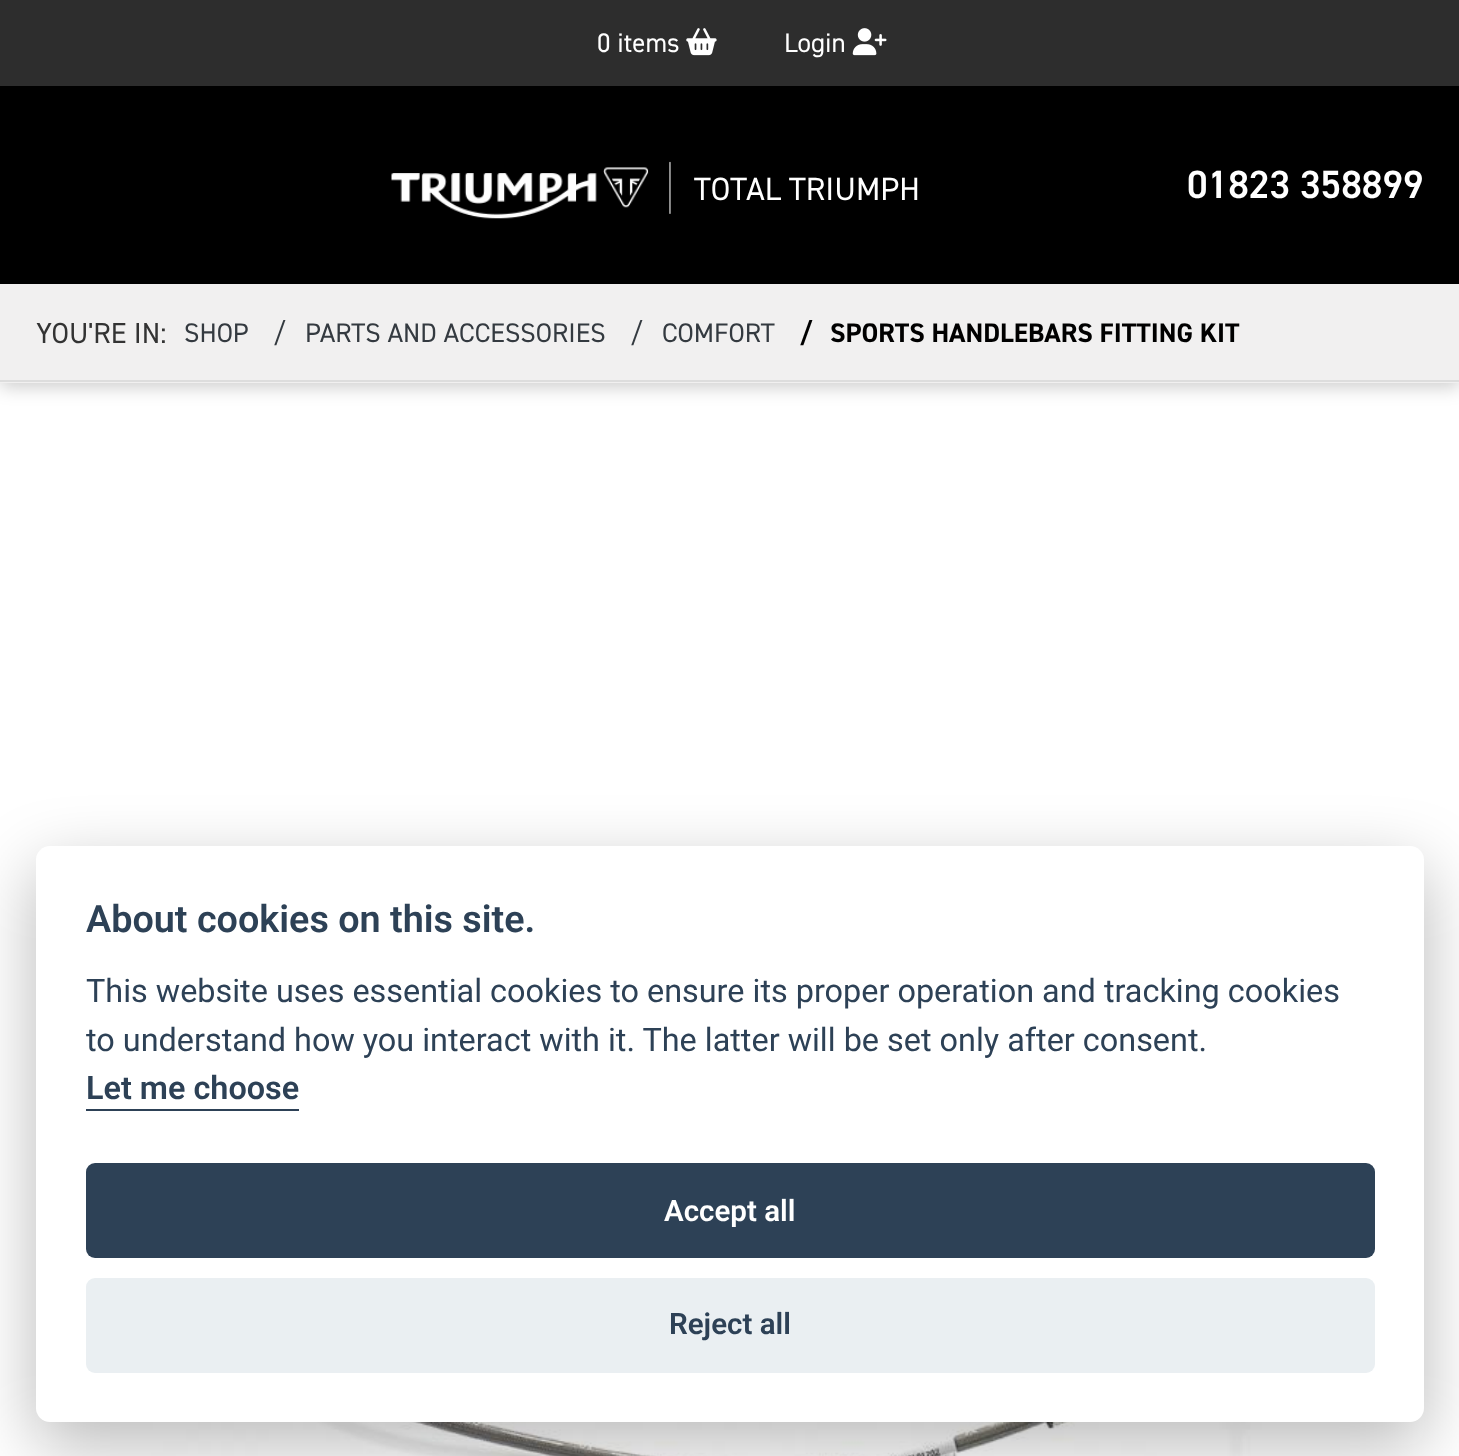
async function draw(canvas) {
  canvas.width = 1459
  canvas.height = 1456
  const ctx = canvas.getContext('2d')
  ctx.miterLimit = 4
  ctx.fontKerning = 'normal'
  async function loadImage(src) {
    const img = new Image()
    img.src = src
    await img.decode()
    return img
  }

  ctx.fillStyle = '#2d2d2d'
  ctx.fillRect(0, 0, 1459, 1456)
  ctx.font = '27px "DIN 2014"'
  ctx.fillStyle = '#fff'
  ctx.fillText('0 items', 597, 52)
  ctx.drawImage(await loadImage('image0.png'), 686, 28, 31, 28)
  ctx.fillText('Login', 784, 52)
  ctx.drawImage(await loadImage('image1.png'), 852, 28, 35, 28)
  ctx.fillStyle = '#000'
  ctx.fillRect(0, 86, 1459, 198)
  ctx.drawImage(await loadImage('image2.png'), 391, 161, 280, 58)
  ctx.font = '32.4px "DIN 2014"'
  ctx.fillStyle = '#fff'
  ctx.fillText('TOTAL TRIUMPH', 694, 200)
  ctx.font = '600 39.5px "DIN 2014"'
  ctx.fillText('01823 358899', 1187, 198)
  ctx.fillRect(0, 383, 1459, 1073)
  ctx.fillStyle = '#00000033'
  ctx.filter = 'blur(9px)'
  ctx.beginPath()
  ctx.rect(0, 288, 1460, 99)
  ctx.fill()
  ctx.filter = 'none'
  ctx.fillStyle = '#f1f0f0'
  ctx.fillRect(0, 284, 1459, 99)
  ctx.fillStyle = '#ddd'
  ctx.fillRect(0, 380, 1459, 2)
  ctx.font = '29px "DIN 2014"'
  ctx.fillStyle = '#333'
  ctx.fillText('YOU\'RE IN:', 36, 343)
  ctx.font = '27px "DIN 2014"'
  ctx.fillStyle = '#343a40'
  ctx.fillText('SHOP', 184, 342)
  ctx.fillText('/', 273, 342)
  ctx.fillText('PARTS AND ACCESSORIES', 305, 342)
  ctx.fillText('/', 630, 342)
  ctx.fillText('COMFORT', 662, 342)
  ctx.font = 'bold 27px "DIN 2014"'
  ctx.fillStyle = '#000'
  ctx.fillText('/', 799, 342)
  ctx.fillText('SPORTS HANDLEBARS FITTING KIT', 830, 342)
  ctx.drawImage(await loadImage('image3.png'), 129, 1422, 1157, 34)
  ctx.fillStyle = '#02020347'
  ctx.filter = 'blur(34px)'
  ctx.beginPath()
  ctx.roundRect(36, 869, 1388, 576, 14)
  ctx.fill()
  ctx.filter = 'none'
  ctx.fillStyle = '#fff'
  ctx.beginPath()
  ctx.roundRect(36, 846, 1388, 576, 14)
  ctx.fill()
  ctx.font = '600 37.75px Roboto'
  ctx.fillStyle = '#2d4156'
  ctx.fillText('About cookies on this site.', 86, 932)
  ctx.font = '32.4px Roboto'
  ctx.fillText('This website uses essential cookies to ensure its proper operation and tracking cookies', 86, 1002)
  ctx.fillText('to understand how you interact with it. The latter will be set only after consent.', 86, 1051)
  ctx.font = '600 32.4px Roboto'
  ctx.fillText('Let me choose', 86, 1099)
  ctx.fillRect(86, 1109, 213, 2)
  ctx.beginPath()
  ctx.roundRect(86, 1163, 1289, 95, 9)
  ctx.fill()
  ctx.font = '600 29.5px Roboto'
  ctx.fillStyle = '#fff'
  ctx.fillText('Accept all', 664, 1221)
  ctx.fillStyle = '#eaeff2'
  ctx.beginPath()
  ctx.roundRect(86, 1278, 1289, 95, 9)
  ctx.fill()
  ctx.fillStyle = '#2d4156'
  ctx.fillText('Reject all', 669, 1334)
}

draw(document.querySelector('canvas'))
